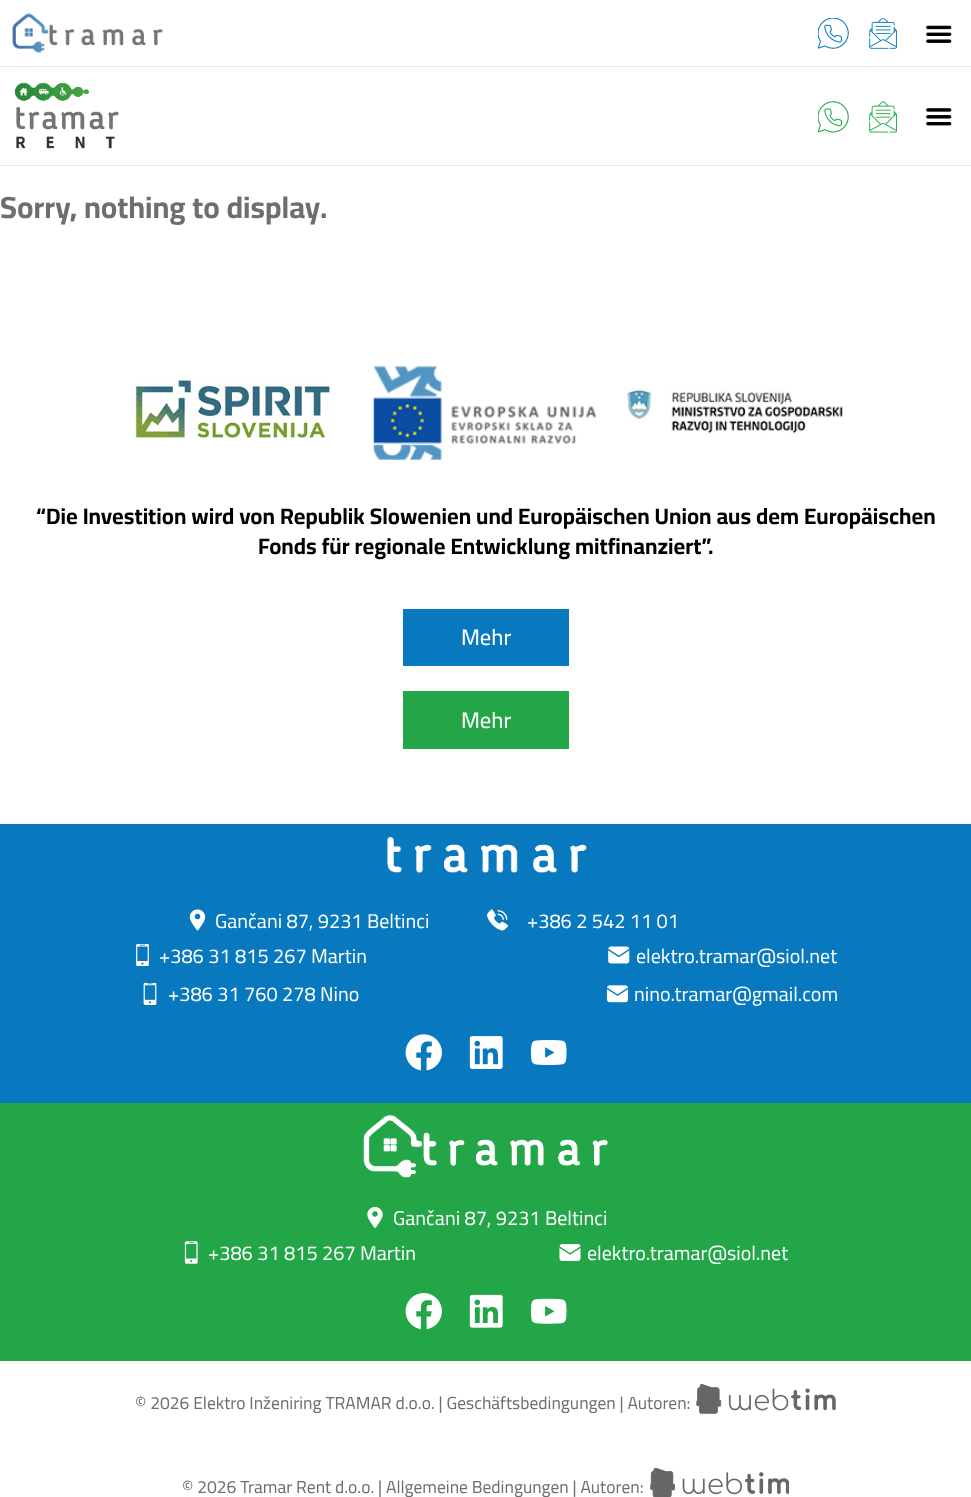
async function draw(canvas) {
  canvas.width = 971
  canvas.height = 1497
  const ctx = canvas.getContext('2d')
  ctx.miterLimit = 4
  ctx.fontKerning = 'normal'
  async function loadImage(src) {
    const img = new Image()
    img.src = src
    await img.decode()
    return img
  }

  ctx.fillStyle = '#fff'
  ctx.fillRect(0, 0, 971, 1497)
  ctx.fillStyle = '#e5e5e5'
  ctx.fillRect(0, 66, 971, 1)
  ctx.drawImage(await loadImage('image0.png'), 12, 13, 151, 40)
  ctx.drawImage(await loadImage('image1.png'), 818, 18, 31, 31)
  ctx.drawImage(await loadImage('image2.png'), 869, 18, 28, 31)
  ctx.drawImage(await loadImage('image3.png'), 926, 25, 26, 18)
  ctx.fillRect(0, 165, 971, 1)
  ctx.drawImage(await loadImage('image4.png'), 14, 82, 105, 67)
  ctx.drawImage(await loadImage('image5.png'), 818, 101, 31, 32)
  ctx.drawImage(await loadImage('image6.png'), 869, 101, 28, 32)
  ctx.drawImage(await loadImage('image7.png'), 926, 108, 26, 18)
  ctx.font = 'bold 30.5px Cairo'
  ctx.fillStyle = '#6d6e71'
  ctx.fillText('Sorry, nothing to display.', 0, 218)
  ctx.drawImage(await loadImage('image8.png'), 135, 380, 195, 58)
  ctx.drawImage(await loadImage('image9.png'), 373, 366, 224, 94)
  ctx.drawImage(await loadImage('image10.png'), 627, 385, 216, 49)
  ctx.font = 'bold 22.5px Cairo'
  ctx.fillStyle = '#000'
  ctx.fillText('“Die Investition wird von Republik Slowenien und Europäischen Union aus dem Europäischen', 36, 524)
  ctx.fillText('Fonds für regionale Entwicklung mitfinanziert”.', 258, 554)
  ctx.fillStyle = '#0879be'
  ctx.fillRect(403, 609, 166, 57)
  ctx.font = '500 22.5px Cairo'
  ctx.fillStyle = '#fff'
  ctx.fillText('Mehr', 461, 645)
  ctx.fillStyle = '#22a648'
  ctx.fillRect(403, 691, 166, 58)
  ctx.fillStyle = '#fff'
  ctx.fillText('Mehr', 461, 728)
  ctx.fillStyle = '#0879be'
  ctx.fillRect(0, 824, 971, 279)
  ctx.drawImage(await loadImage('image11.png'), 387, 837, 200, 36)
  ctx.drawImage(await loadImage('image12.png'), 189, 909, 17, 22)
  ctx.font = '20px Cairo'
  ctx.fillStyle = '#fff'
  ctx.fillText('Gančani 87, 9231 Beltinci', 215, 928)
  ctx.drawImage(await loadImage('image13.png'), 487, 909, 21, 22)
  ctx.fillText('+386 2 542 11 01', 527, 928)
  ctx.drawImage(await loadImage('image14.png'), 136, 944, 13, 22)
  ctx.fillText('+386 31 815 267 Martin', 159, 963)
  ctx.drawImage(await loadImage('image15.png'), 608, 946, 22, 18)
  ctx.fillText('elektro.tramar@siol.net', 636, 963)
  ctx.drawImage(await loadImage('image16.png'), 143, 983, 14, 22)
  ctx.fillText('+386 31 760 278 Nino', 168, 1001)
  ctx.drawImage(await loadImage('image17.png'), 606, 985, 23, 18)
  ctx.fillText('nino.tramar@gmail.com', 634, 1001)
  ctx.drawImage(await loadImage('image18.png'), 405, 1034, 37, 37)
  ctx.drawImage(await loadImage('image19.png'), 469, 1036, 34, 33)
  ctx.drawImage(await loadImage('image20.png'), 531, 1040, 36, 25)
  ctx.fillStyle = '#22a648'
  ctx.fillRect(0, 1103, 971, 258)
  ctx.drawImage(await loadImage('image21.png'), 363, 1115, 245, 63)
  ctx.drawImage(await loadImage('image22.png'), 367, 1207, 16, 21)
  ctx.fillStyle = '#fff'
  ctx.fillText('Gančani 87, 9231 Beltinci', 393, 1225)
  ctx.drawImage(await loadImage('image23.png'), 184, 1241, 14, 23)
  ctx.fillText('+386 31 815 267 Martin', 208, 1260)
  ctx.drawImage(await loadImage('image24.png'), 559, 1244, 22, 17)
  ctx.fillText('elektro.tramar@siol.net', 587, 1260)
  ctx.drawImage(await loadImage('image25.png'), 405, 1293, 37, 37)
  ctx.drawImage(await loadImage('image26.png'), 469, 1294, 34, 34)
  ctx.drawImage(await loadImage('image27.png'), 531, 1298, 36, 26)
  ctx.font = '17.5px Cairo'
  ctx.fillStyle = '#6d6e71'
  ctx.fillText('© 2026 Elektro Inženiring TRAMAR d.o.o. | Geschäftsbedingungen | Autoren:', 135, 1409)
  ctx.drawImage(await loadImage('image28.png'), 696, 1384, 140, 30)
  ctx.fillText('© 2026 Tramar Rent d.o.o. | Allgemeine Bedingungen | Autoren:', 182, 1493)
  ctx.drawImage(await loadImage('image29.png'), 650, 1468, 139, 29)
}

draw(document.querySelector('canvas'))
